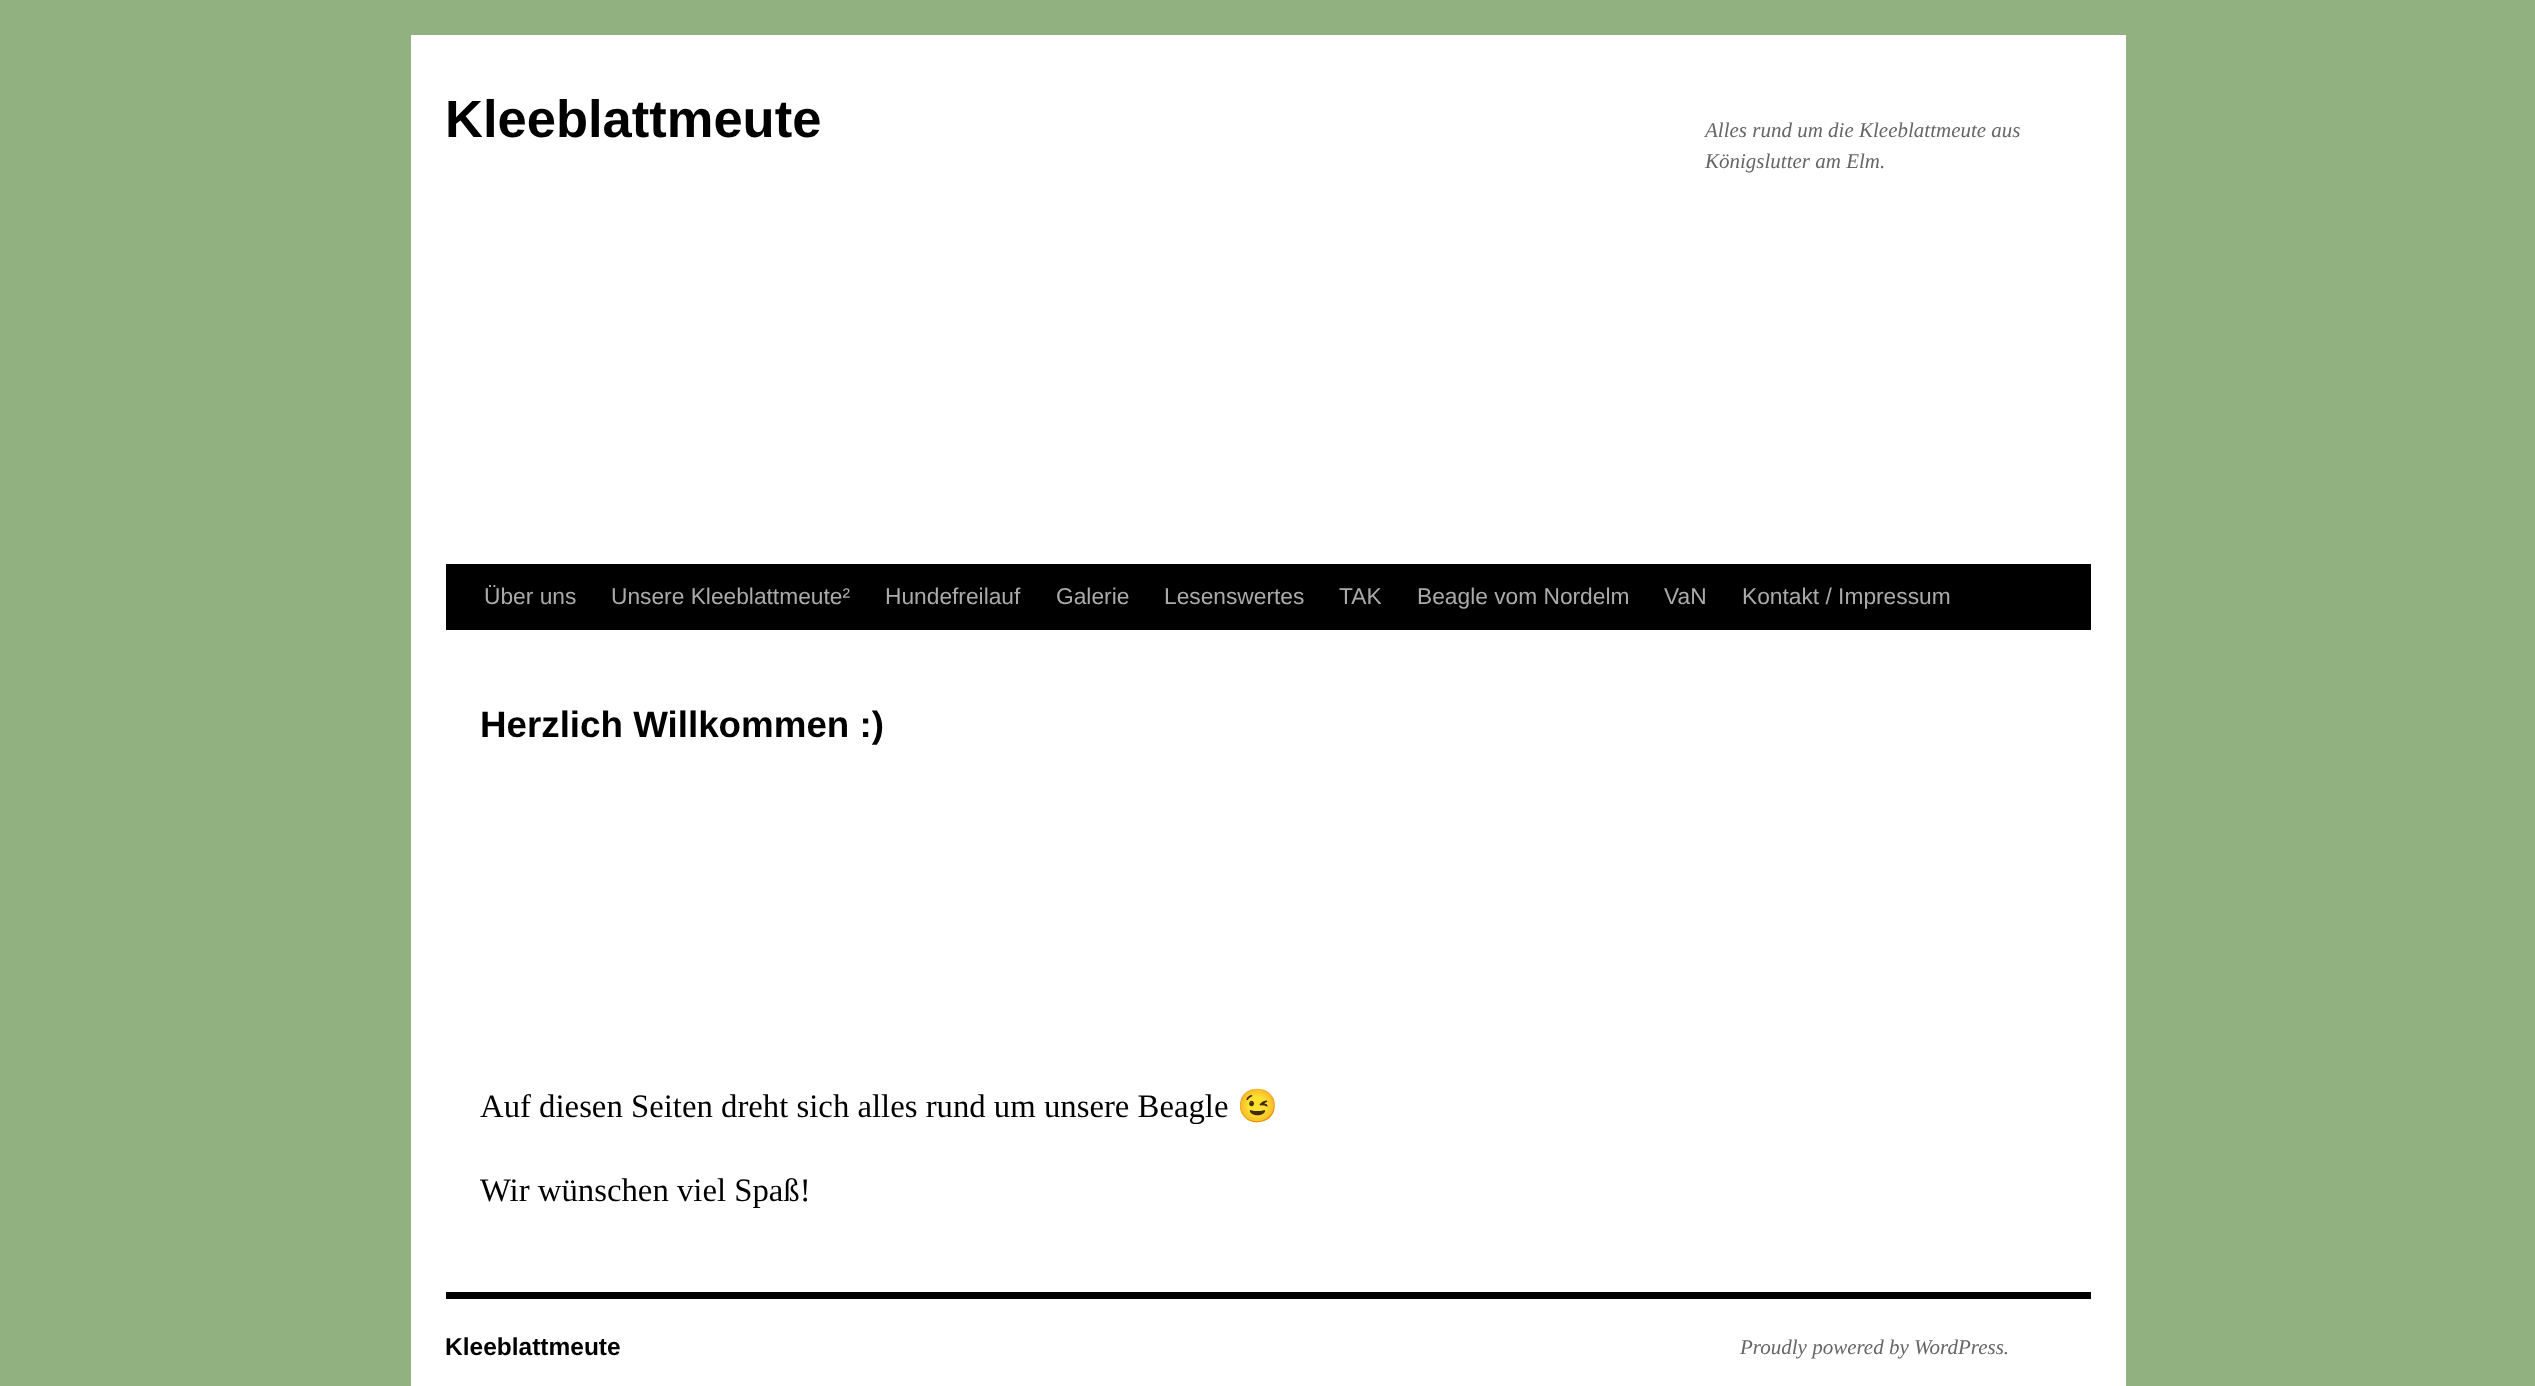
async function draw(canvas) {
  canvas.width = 2535
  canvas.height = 1386
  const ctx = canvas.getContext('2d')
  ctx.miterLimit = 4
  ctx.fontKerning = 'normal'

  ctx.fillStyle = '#91b280'
  ctx.fillRect(0, 0, 2535, 1386)
  ctx.fillStyle = '#fff'
  ctx.fillRect(411, 35, 1715, 1351)
  ctx.font = 'bold 52.5px Liberation Sans'
  ctx.fillStyle = '#000'
  ctx.fillText('Kleeblattmeute', 445, 137)
  ctx.font = 'italic 21px Liberation Serif'
  ctx.fillStyle = '#666'
  ctx.fillText('Alles rund um die Kleeblattmeute aus', 1705, 137)
  ctx.fillText('Königslutter am Elm.', 1705, 168)
  ctx.fillStyle = '#000'
  ctx.fillRect(446, 564, 1645, 66)
  ctx.font = '22.75px Liberation Sans'
  ctx.fillStyle = '#aaa'
  ctx.fillText('Über uns', 484, 604)
  ctx.fillText('Unsere Kleeblattmeute²', 611, 604)
  ctx.fillText('Hundefreilauf', 885, 604)
  ctx.fillText('Galerie', 1056, 604)
  ctx.fillText('Lesenswertes', 1164, 604)
  ctx.fillText('TAK', 1339, 604)
  ctx.fillText('Beagle vom Nordelm', 1417, 604)
  ctx.fillText('VaN', 1664, 604)
  ctx.fillText('Kontakt / Impressum', 1742, 604)
  ctx.font = 'bold 36.75px Liberation Sans'
  ctx.fillStyle = '#000'
  ctx.fillText('Herzlich Willkommen :)', 480, 737)
  ctx.font = '32.75px Liberation Serif'
  ctx.fillText('Auf diesen Seiten dreht sich alles rund um unsere Beagle', 480, 1117)
  ctx.font = '32.75px Noto Color Emoji'
  ctx.fillText('😉', 1237, 1117)
  ctx.font = '32.75px Liberation Serif'
  ctx.fillText('Wir wünschen viel Spaß!', 480, 1201)
  ctx.fillRect(446, 1292, 1645, 7)
  ctx.font = 'bold 24.5px Liberation Sans'
  ctx.fillText('Kleeblattmeute', 445, 1355)
  ctx.font = 'italic 21px Liberation Serif'
  ctx.fillStyle = '#666'
  ctx.fillText('Proudly powered by WordPress.', 1740, 1354)
}

draw(document.querySelector('canvas'))
